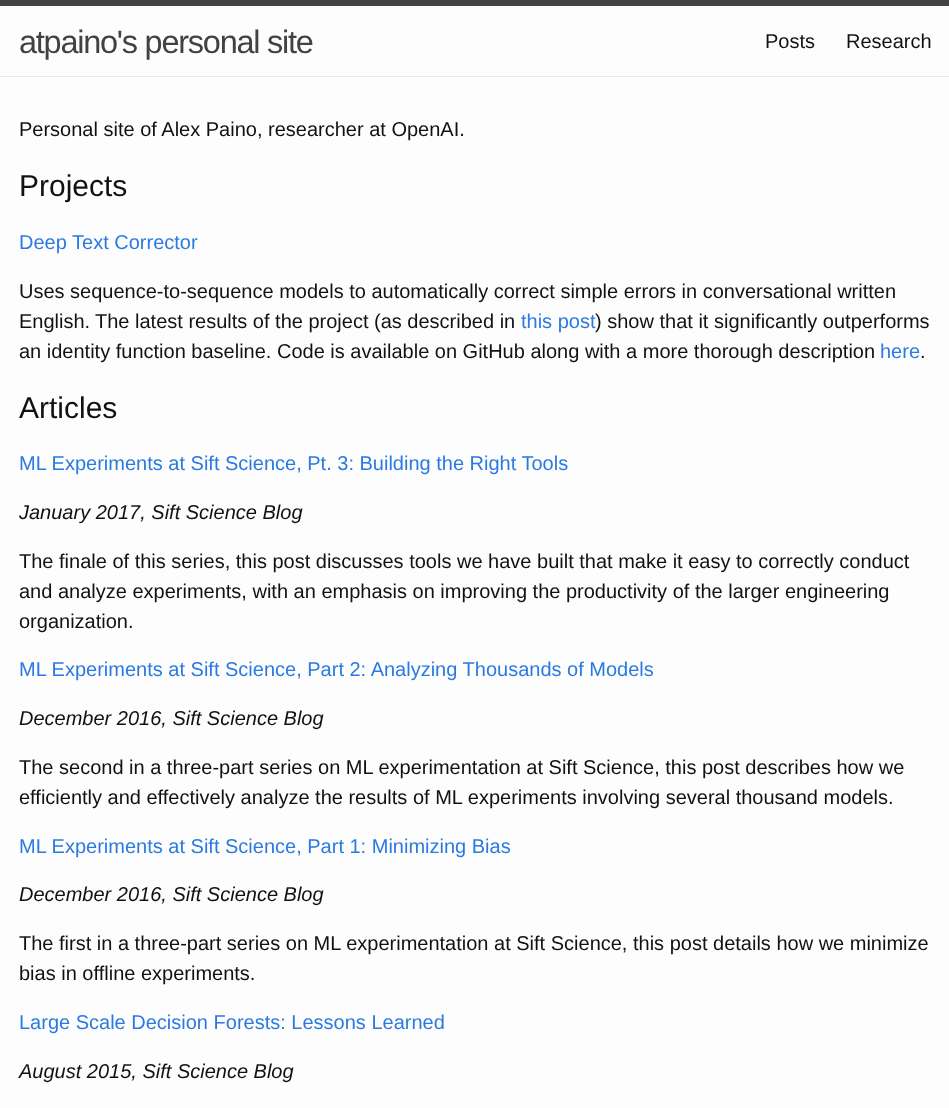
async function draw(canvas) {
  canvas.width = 949
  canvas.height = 1108
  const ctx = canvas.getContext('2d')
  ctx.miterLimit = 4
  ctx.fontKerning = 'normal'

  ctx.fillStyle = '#fdfdfd'
  ctx.fillRect(0, 0, 949, 1108)
  ctx.fillStyle = '#424242'
  ctx.fillRect(0, 0, 949, 6)
  ctx.fillStyle = '#e8e8e8'
  ctx.fillRect(0, 76, 949, 1)
  ctx.letterSpacing = '-1.25px'
  ctx.font = '32.5px Liberation Sans'
  ctx.fillStyle = '#424242'
  ctx.fillText('atpaino\'s personal site', 19, 53)
  ctx.letterSpacing = '0px'
  ctx.font = '20px Liberation Sans'
  ctx.fillStyle = '#111'
  ctx.fillText('Posts', 765, 48)
  ctx.fillText('Research', 846, 48)
  ctx.fillText('Personal site of Alex Paino, researcher at OpenAI.', 19, 136)
  ctx.font = '30px Liberation Sans'
  ctx.fillText('Projects', 19, 196)
  ctx.font = '20px Liberation Sans'
  ctx.fillStyle = '#2a7ae2'
  ctx.fillText('Deep Text Corrector', 19, 249)
  ctx.fillStyle = '#111'
  ctx.fillText('Uses sequence-to-sequence models to automatically correct simple errors in conversational written', 19, 298)
  ctx.fillText('English.', 19, 328)
  ctx.fillText('The latest results of the project (as described in', 95, 328)
  ctx.fillStyle = '#2a7ae2'
  ctx.fillText('this post', 521, 328)
  ctx.fillStyle = '#111'
  ctx.fillText(') show that it significantly outperforms', 595, 328)
  ctx.fillText('an identity function baseline. Code is available on GitHub along with a more thorough description', 19, 358)
  ctx.fillStyle = '#2a7ae2'
  ctx.fillText('here', 880, 358)
  ctx.fillStyle = '#111'
  ctx.fillText('.', 920, 358)
  ctx.font = '30px Liberation Sans'
  ctx.fillText('Articles', 19, 418)
  ctx.font = '20px Liberation Sans'
  ctx.fillStyle = '#2a7ae2'
  ctx.fillText('ML Experiments at Sift Science, Pt. 3: Building the Right Tools', 19, 470)
  ctx.font = 'italic 20px Liberation Sans'
  ctx.fillStyle = '#111'
  ctx.fillText('January 2017, Sift Science Blog', 19, 519)
  ctx.font = '20px Liberation Sans'
  ctx.fillText('The finale of this series, this post discusses tools we have built that make it easy to correctly conduct', 19, 568)
  ctx.fillText('and analyze experiments, with an emphasis on improving the productivity of the larger engineering', 19, 598)
  ctx.fillText('organization.', 19, 628)
  ctx.fillStyle = '#2a7ae2'
  ctx.fillText('ML Experiments at Sift Science, Part 2: Analyzing Thousands of Models', 19, 676)
  ctx.font = 'italic 20px Liberation Sans'
  ctx.fillStyle = '#111'
  ctx.fillText('December 2016, Sift Science Blog', 19, 725)
  ctx.font = '20px Liberation Sans'
  ctx.fillText('The second in a three-part series on ML experimentation at Sift Science, this post describes how we', 19, 774)
  ctx.fillText('efficiently and effectively analyze the results of ML experiments involving several thousand models.', 19, 804)
  ctx.fillStyle = '#2a7ae2'
  ctx.fillText('ML Experiments at Sift Science, Part 1: Minimizing Bias', 19, 853)
  ctx.font = 'italic 20px Liberation Sans'
  ctx.fillStyle = '#111'
  ctx.fillText('December 2016, Sift Science Blog', 19, 901)
  ctx.font = '20px Liberation Sans'
  ctx.fillText('The first in a three-part series on ML experimentation at Sift Science, this post details how we minimize', 19, 950)
  ctx.fillText('bias in offline experiments.', 19, 980)
  ctx.fillStyle = '#2a7ae2'
  ctx.fillText('Large Scale Decision Forests: Lessons Learned', 19, 1029)
  ctx.font = 'italic 20px Liberation Sans'
  ctx.fillStyle = '#111'
  ctx.fillText('August 2015, Sift Science Blog', 19, 1078)
}

draw(document.querySelector('canvas'))
